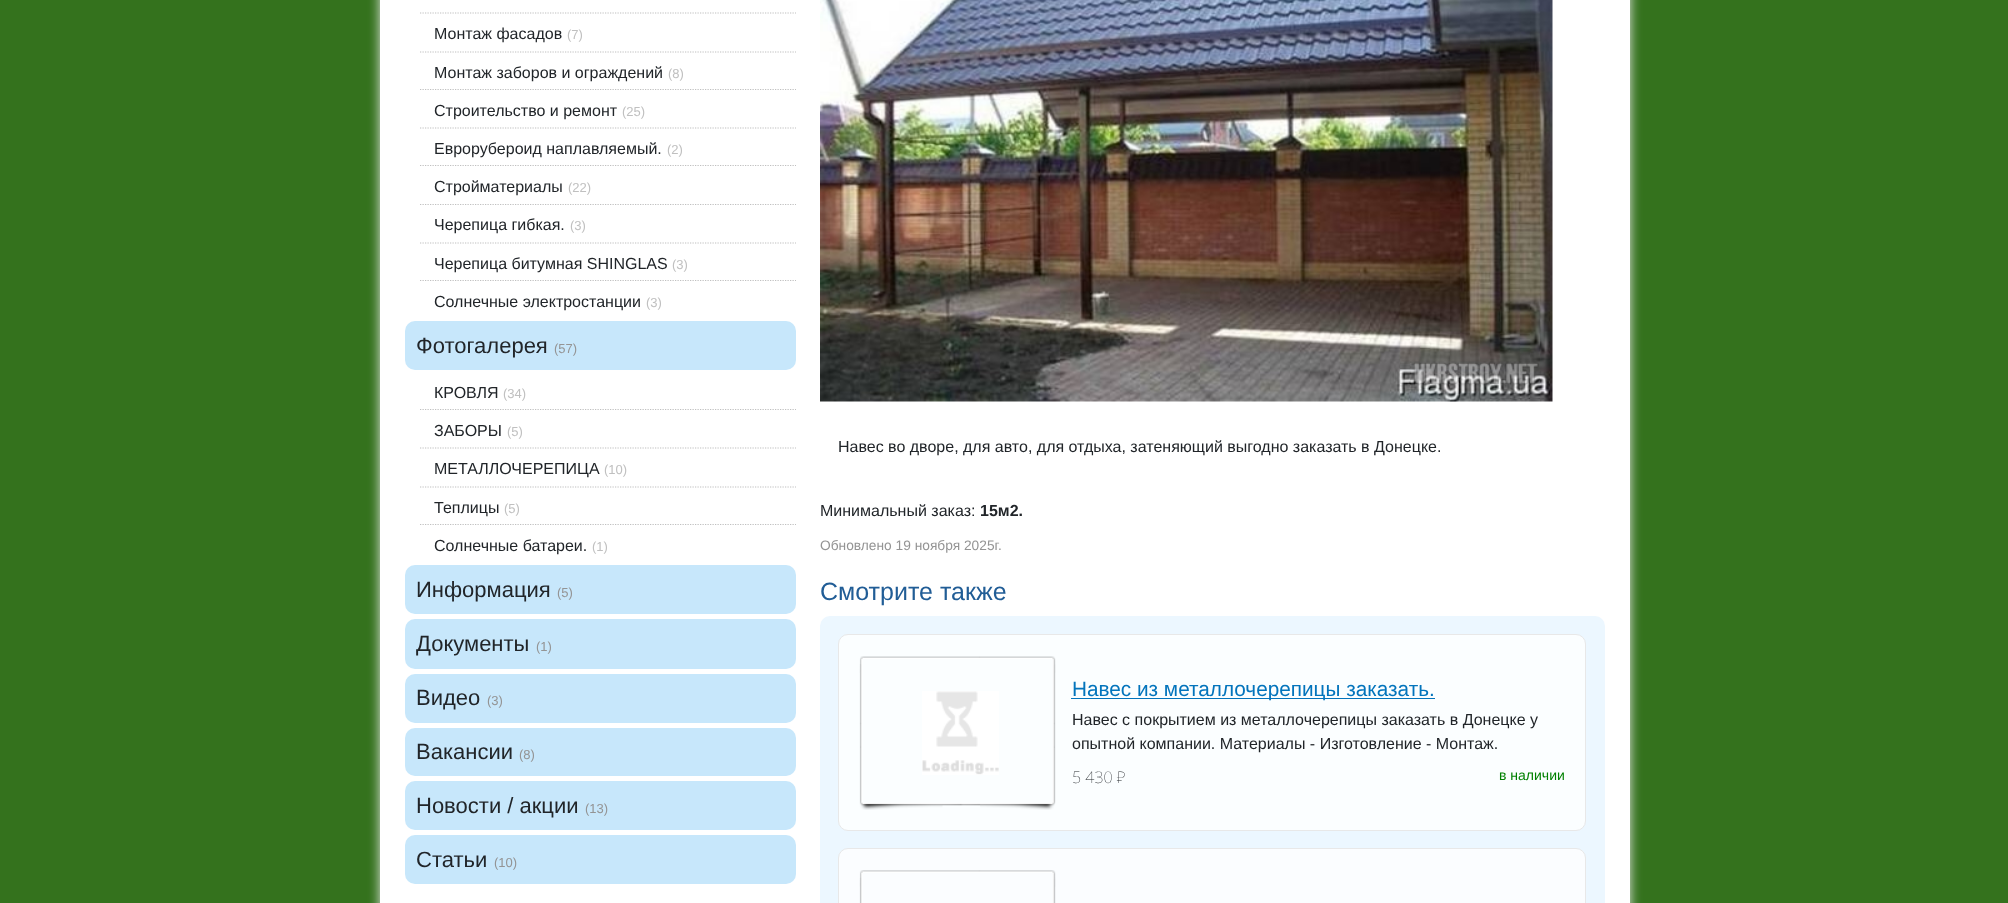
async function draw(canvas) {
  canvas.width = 2008
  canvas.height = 903
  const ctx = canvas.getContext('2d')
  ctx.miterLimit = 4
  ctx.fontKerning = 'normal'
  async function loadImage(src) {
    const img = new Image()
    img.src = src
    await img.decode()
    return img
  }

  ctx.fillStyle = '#34721d'
  ctx.fillRect(0, 0, 2008, 903)
  ctx.fillStyle = '#e8e8e8'
  ctx.filter = 'blur(6px)'
  ctx.beginPath()
  ctx.rect(380, -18, 1250, 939)
  ctx.fill()
  ctx.filter = 'none'
  ctx.fillStyle = '#fff'
  ctx.fillRect(380, 0, 1250, 903)
  ctx.beginPath()
  ctx.moveTo(420, 13)
  ctx.lineTo(796, 13)
  ctx.strokeStyle = '#c0c0c0'
  ctx.lineWidth = 1.2
  ctx.setLineDash([1.25, 1.25])
  ctx.stroke()
  ctx.beginPath()
  ctx.moveTo(420, 52)
  ctx.lineTo(796, 52)
  ctx.stroke()
  ctx.font = '16px Liberation Sans'
  ctx.fillStyle = '#212529'
  ctx.fillText('Монтаж фасадов', 434, 39)
  ctx.font = '13px Liberation Sans'
  ctx.fillStyle = '#c0c0c0'
  ctx.fillText('(7)', 567, 39)
  ctx.beginPath()
  ctx.moveTo(420, 89.5)
  ctx.lineTo(796, 89.5)
  ctx.stroke()
  ctx.font = '16px Liberation Sans'
  ctx.fillStyle = '#212529'
  ctx.fillText('Монтаж заборов и ограждений', 434, 78)
  ctx.font = '13px Liberation Sans'
  ctx.fillStyle = '#c0c0c0'
  ctx.fillText('(8)', 668, 78)
  ctx.beginPath()
  ctx.moveTo(420, 128)
  ctx.lineTo(796, 128)
  ctx.stroke()
  ctx.font = '16px Liberation Sans'
  ctx.fillStyle = '#212529'
  ctx.fillText('Строительство и ремонт', 434, 116)
  ctx.font = '13px Liberation Sans'
  ctx.fillStyle = '#c0c0c0'
  ctx.fillText('(25)', 622, 116)
  ctx.beginPath()
  ctx.moveTo(420, 165.5)
  ctx.lineTo(796, 165.5)
  ctx.stroke()
  ctx.font = '16px Liberation Sans'
  ctx.fillStyle = '#212529'
  ctx.fillText('Еврорубероид наплавляемый.', 434, 154)
  ctx.font = '13px Liberation Sans'
  ctx.fillStyle = '#c0c0c0'
  ctx.fillText('(2)', 667, 154)
  ctx.beginPath()
  ctx.moveTo(420, 204.5)
  ctx.lineTo(796, 204.5)
  ctx.stroke()
  ctx.font = '16px Liberation Sans'
  ctx.fillStyle = '#212529'
  ctx.fillText('Стройматериалы', 434, 192)
  ctx.font = '13px Liberation Sans'
  ctx.fillStyle = '#c0c0c0'
  ctx.fillText('(22)', 568, 192)
  ctx.beginPath()
  ctx.moveTo(420, 243)
  ctx.lineTo(796, 243)
  ctx.stroke()
  ctx.font = '16px Liberation Sans'
  ctx.fillStyle = '#212529'
  ctx.fillText('Черепица гибкая.', 434, 230)
  ctx.font = '13px Liberation Sans'
  ctx.fillStyle = '#c0c0c0'
  ctx.fillText('(3)', 570, 230)
  ctx.beginPath()
  ctx.moveTo(420, 280.5)
  ctx.lineTo(796, 280.5)
  ctx.stroke()
  ctx.font = '16px Liberation Sans'
  ctx.fillStyle = '#212529'
  ctx.fillText('Черепица битумная SHINGLAS', 434, 269)
  ctx.font = '13px Liberation Sans'
  ctx.fillStyle = '#c0c0c0'
  ctx.fillText('(3)', 672, 269)
  ctx.font = '16px Liberation Sans'
  ctx.fillStyle = '#212529'
  ctx.fillText('Солнечные электростанции', 434, 307)
  ctx.font = '13px Liberation Sans'
  ctx.fillStyle = '#c0c0c0'
  ctx.fillText('(3)', 646, 307)
  ctx.fillStyle = '#c7e7fb'
  ctx.beginPath()
  ctx.roundRect(405, 321, 391, 49, 10)
  ctx.fill()
  ctx.font = '22px Liberation Sans'
  ctx.fillStyle = '#212529'
  ctx.fillText('Фотогалерея', 416, 353)
  ctx.font = '13px Liberation Sans'
  ctx.fillStyle = '#949494'
  ctx.fillText('(57)', 554, 353)
  ctx.beginPath()
  ctx.moveTo(420, 409.5)
  ctx.lineTo(796, 409.5)
  ctx.stroke()
  ctx.font = '16px Liberation Sans'
  ctx.fillStyle = '#212529'
  ctx.fillText('КРОВЛЯ', 434, 398)
  ctx.font = '13px Liberation Sans'
  ctx.fillStyle = '#c0c0c0'
  ctx.fillText('(34)', 503, 398)
  ctx.beginPath()
  ctx.moveTo(420, 448)
  ctx.lineTo(796, 448)
  ctx.stroke()
  ctx.font = '16px Liberation Sans'
  ctx.fillStyle = '#212529'
  ctx.fillText('ЗАБОРЫ', 434, 436)
  ctx.font = '13px Liberation Sans'
  ctx.fillStyle = '#c0c0c0'
  ctx.fillText('(5)', 507, 436)
  ctx.beginPath()
  ctx.moveTo(420, 487)
  ctx.lineTo(796, 487)
  ctx.stroke()
  ctx.font = '16px Liberation Sans'
  ctx.fillStyle = '#212529'
  ctx.fillText('МЕТАЛЛОЧЕРЕПИЦА', 434, 474)
  ctx.font = '13px Liberation Sans'
  ctx.fillStyle = '#c0c0c0'
  ctx.fillText('(10)', 604, 474)
  ctx.beginPath()
  ctx.moveTo(420, 524.5)
  ctx.lineTo(796, 524.5)
  ctx.stroke()
  ctx.font = '16px Liberation Sans'
  ctx.fillStyle = '#212529'
  ctx.fillText('Теплицы', 434, 513)
  ctx.font = '13px Liberation Sans'
  ctx.fillStyle = '#c0c0c0'
  ctx.fillText('(5)', 504, 513)
  ctx.font = '16px Liberation Sans'
  ctx.fillStyle = '#212529'
  ctx.fillText('Солнечные батареи.', 434, 551)
  ctx.font = '13px Liberation Sans'
  ctx.fillStyle = '#c0c0c0'
  ctx.fillText('(1)', 592, 551)
  ctx.fillStyle = '#c7e7fb'
  ctx.beginPath()
  ctx.roundRect(405, 565, 391, 49, 10)
  ctx.fill()
  ctx.font = '22px Liberation Sans'
  ctx.fillStyle = '#212529'
  ctx.fillText('Информация', 416, 597)
  ctx.font = '13px Liberation Sans'
  ctx.fillStyle = '#949494'
  ctx.fillText('(5)', 557, 597)
  ctx.fillStyle = '#c7e7fb'
  ctx.beginPath()
  ctx.roundRect(405, 619, 391, 50, 10)
  ctx.fill()
  ctx.font = '22px Liberation Sans'
  ctx.fillStyle = '#212529'
  ctx.fillText('Документы', 416, 651)
  ctx.font = '13px Liberation Sans'
  ctx.fillStyle = '#949494'
  ctx.fillText('(1)', 536, 651)
  ctx.fillStyle = '#c7e7fb'
  ctx.beginPath()
  ctx.roundRect(405, 674, 391, 49, 10)
  ctx.fill()
  ctx.font = '22px Liberation Sans'
  ctx.fillStyle = '#212529'
  ctx.fillText('Видео', 416, 705)
  ctx.font = '13px Liberation Sans'
  ctx.fillStyle = '#949494'
  ctx.fillText('(3)', 487, 705)
  ctx.fillStyle = '#c7e7fb'
  ctx.beginPath()
  ctx.roundRect(405, 728, 391, 48, 10)
  ctx.fill()
  ctx.font = '22px Liberation Sans'
  ctx.fillStyle = '#212529'
  ctx.fillText('Вакансии', 416, 759)
  ctx.font = '13px Liberation Sans'
  ctx.fillStyle = '#949494'
  ctx.fillText('(8)', 519, 759)
  ctx.fillStyle = '#c7e7fb'
  ctx.beginPath()
  ctx.roundRect(405, 781, 391, 49, 10)
  ctx.fill()
  ctx.font = '22px Liberation Sans'
  ctx.fillStyle = '#212529'
  ctx.fillText('Новости / акции', 416, 813)
  ctx.font = '13px Liberation Sans'
  ctx.fillStyle = '#949494'
  ctx.fillText('(13)', 585, 813)
  ctx.fillStyle = '#c7e7fb'
  ctx.beginPath()
  ctx.roundRect(405, 835, 391, 49, 10)
  ctx.fill()
  ctx.font = '22px Liberation Sans'
  ctx.fillStyle = '#212529'
  ctx.fillText('Статьи', 416, 867)
  ctx.font = '13px Liberation Sans'
  ctx.fillStyle = '#949494'
  ctx.fillText('(10)', 494, 867)
  ctx.drawImage(await loadImage('image0.png'), 820, 0, 733, 402)
  ctx.font = '16px Liberation Sans'
  ctx.fillStyle = '#212529'
  ctx.fillText('Навес во дворе, для авто, для отдыха, затеняющий выгодно заказать в Донецке.', 838, 452)
  ctx.fillText('Минимальный заказ:', 820, 516)
  ctx.font = 'bold 16px Liberation Sans'
  ctx.fillText('15м2.', 980, 516)
  ctx.font = '13.75px Liberation Sans'
  ctx.fillStyle = '#949494'
  ctx.fillText('Обновлено 19 ноября 2025г.', 820, 550)
  ctx.font = '25px Liberation Sans'
  ctx.fillStyle = '#215d96'
  ctx.fillText('Смотрите также', 820, 600)
  ctx.fillStyle = '#ecf7ff'
  ctx.beginPath()
  ctx.roundRect(820, 616, 785, 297, 10)
  ctx.fill()
  ctx.fillStyle = '#fbfeff'
  ctx.beginPath()
  ctx.roundRect(838.5, 634.5, 747, 196, 9.5)
  ctx.fill()
  ctx.strokeStyle = '#e8e8e8'
  ctx.lineWidth = 1
  ctx.setLineDash([])
  ctx.stroke()
  ctx.drawImage(await loadImage('image2.png'), 922, 691, 77, 84)
  ctx.drawImage(await loadImage('image1.png'), 859, 656, 197, 154)
  ctx.fillStyle = '#0374bc'
  ctx.fillRect(1071, 698, 364, 1)
  ctx.font = '20.75px Liberation Sans'
  ctx.fillText('Навес из металлочерепицы заказать.', 1072, 696)
  ctx.font = '16px Liberation Sans'
  ctx.fillStyle = '#212529'
  ctx.fillText('Навес с покрытием из металлочерепицы заказать в Донецке у', 1072, 725)
  ctx.fillText('опытной компании. Материалы - Изготовление - Монтаж.', 1072, 749)
  ctx.font = '100 16px Noto Sans'
  ctx.fillText('5 430 ₽', 1072, 783)
  ctx.font = '14px Liberation Sans'
  ctx.fillStyle = '#008000'
  ctx.fillText('в наличии', 1499, 780)
  ctx.fillStyle = '#fbfdff'
  ctx.beginPath()
  ctx.roundRect(838.5, 848.5, 747, 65, 9.5)
  ctx.fill()
  ctx.stroke()
  ctx.drawImage(await loadImage('image3.png'), 859, 870, 197, 33)
}

draw(document.querySelector('canvas'))
